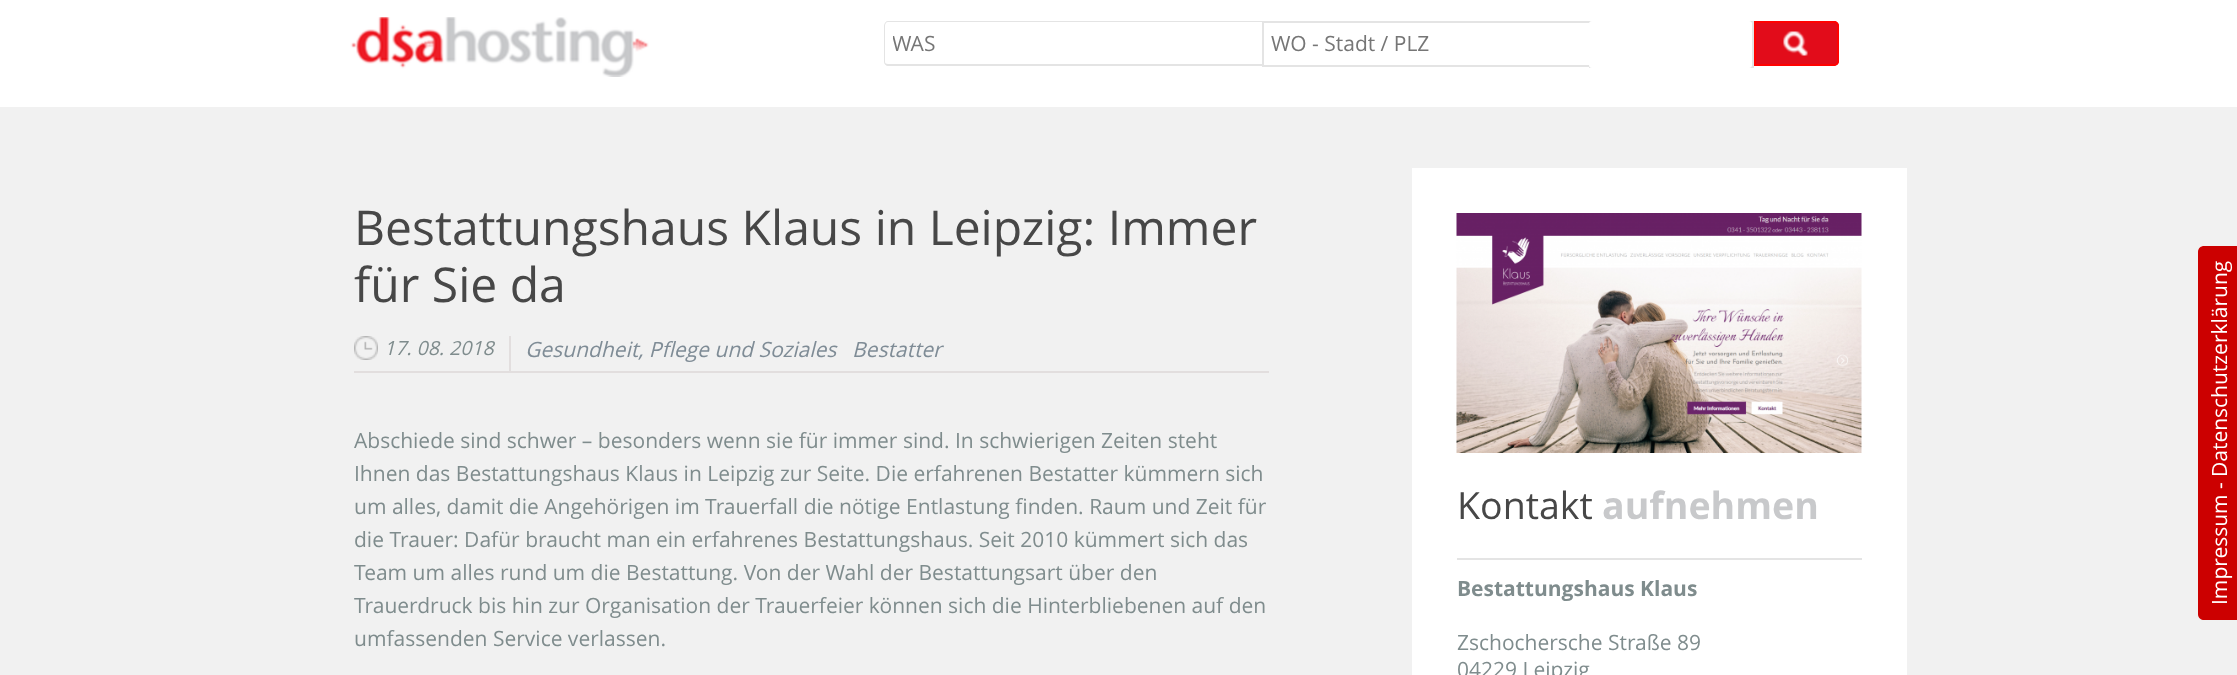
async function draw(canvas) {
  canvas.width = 2237
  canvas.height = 675
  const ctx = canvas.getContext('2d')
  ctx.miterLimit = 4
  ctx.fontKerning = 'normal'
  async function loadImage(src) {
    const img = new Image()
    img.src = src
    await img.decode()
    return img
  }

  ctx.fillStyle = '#fff'
  ctx.fillRect(0, 0, 2237, 675)
  ctx.drawImage(await loadImage('image0.png'), 350, 17, 299, 60)
  ctx.fillStyle = '#e4e4e4'
  ctx.beginPath()
  ctx.moveTo(888, 21)
  ctx.lineTo(1262, 21)
  ctx.lineTo(1262, 66)
  ctx.lineTo(888, 66)
  ctx.bezierCurveTo(886, 66, 884, 64, 884, 62)
  ctx.lineTo(884, 26)
  ctx.bezierCurveTo(884, 23, 886, 21, 888, 21)
  ctx.closePath()
  ctx.moveTo(888, 22)
  ctx.lineTo(1262, 22)
  ctx.lineTo(1262, 64)
  ctx.lineTo(888, 64)
  ctx.bezierCurveTo(886, 64, 885, 63, 885, 62)
  ctx.lineTo(885, 26)
  ctx.bezierCurveTo(885, 24, 886, 22, 888, 22)
  ctx.closePath()
  ctx.fill('evenodd')
  ctx.save()
  ctx.beginPath()
  ctx.rect(893, 29, 361, 28)
  ctx.clip()
  ctx.font = '21px Open Sans'
  ctx.fillStyle = '#767676'
  ctx.fillText('WAS', 892, 51)
  ctx.restore()
  ctx.fillRect(1262, 21, 327, 2)
  ctx.fillRect(1262, 65, 327, 2)
  ctx.fillRect(1262, 21, 2, 45)
  ctx.font = '21px Open Sans'
  ctx.fillStyle = '#767676'
  ctx.fillText('WO - Stadt / PLZ', 1271, 51)
  ctx.strokeStyle = '#e4e4e4'
  ctx.lineWidth = 2
  ctx.strokeRect(1590, 22, 163, 45)
  ctx.fillStyle = '#fff'
  ctx.beginPath()
  ctx.roundRect(1590, 22, 161, 45, 2)
  ctx.fill()
  ctx.strokeStyle = '#fff'
  ctx.stroke()
  ctx.fillStyle = '#e20c1a'
  ctx.beginPath()
  ctx.roundRect(1754, 21, 85, 45, [0, 5, 5, 0])
  ctx.fill()
  ctx.drawImage(await loadImage('image1.png'), 1783, 31, 25, 25)
  ctx.beginPath()
  ctx.roundRect(1755, 22, 83, 43, [0, 4, 4, 0])
  ctx.strokeStyle = '#ff0202'
  ctx.stroke()
  ctx.fillStyle = '#f1f1f1'
  ctx.fillRect(0, 107, 2237, 568)
  ctx.font = '48px Open Sans'
  ctx.fillStyle = '#474747'
  ctx.fillText('Bestattungshaus Klaus in Leipzig: Immer', 354, 245)
  ctx.fillText('für Sie da', 354, 302)
  ctx.drawImage(await loadImage('image2.png'), 354, 336, 24, 24)
  ctx.font = 'italic 19.5px Open Sans'
  ctx.fillStyle = '#7f8c8d'
  ctx.fillText('17. 08. 2018', 384, 355)
  ctx.fillStyle = '#e2dede'
  ctx.fillRect(354, 371, 915, 2)
  ctx.fillRect(509, 336, 2, 35)
  ctx.font = 'italic 21px Open Sans'
  ctx.fillStyle = '#7f8c96'
  ctx.fillText('Gesundheit, Pflege und Soziales', 525, 357)
  ctx.fillText('Bestatter', 852, 357)
  ctx.font = '21px Open Sans'
  ctx.fillStyle = '#7f8c8d'
  ctx.fillText('Abschiede sind schwer – besonders wenn sie für immer sind. In schwierigen Zeiten steht', 354, 448)
  ctx.fillText('Ihnen das Bestattungshaus Klaus in Leipzig zur Seite. Die erfahrenen Bestatter kümmern sich', 354, 481)
  ctx.fillText('um alles, damit die Angehörigen im Trauerfall die nötige Entlastung finden. Raum und Zeit für', 354, 514)
  ctx.fillText('die Trauer: Dafür braucht man ein erfahrenes Bestattungshaus. Seit 2010 kümmert sich das', 354, 547)
  ctx.fillText('Team um alles rund um die Bestattung. Von der Wahl der Bestattungsart über den', 354, 580)
  ctx.fillText('Trauerdruck bis hin zur Organisation der Trauerfeier können sich die Hinterbliebenen auf den', 354, 613)
  ctx.fillText('umfassenden Service verlassen.', 354, 646)
  ctx.fillStyle = '#fff'
  ctx.fillRect(1412, 168, 495, 507)
  ctx.drawImage(await loadImage('image3.png'), 1456, 213, 406, 240)
  ctx.fillStyle = '#e4e4e4'
  ctx.fillRect(1457, 558, 405, 2)
  ctx.font = '37.5px Open Sans'
  ctx.fillStyle = '#474747'
  ctx.fillText('Kontakt', 1457, 519)
  ctx.font = 'bold 37.5px Open Sans'
  ctx.fillStyle = '#c8c9cb'
  ctx.fillText('aufnehmen', 1602, 519)
  ctx.font = 'bold 21px Open Sans'
  ctx.fillStyle = '#7f8c8d'
  ctx.fillText('Bestattungshaus Klaus', 1457, 596)
  ctx.font = '21px Open Sans'
  ctx.fillText('Zschochersche Straße 89', 1457, 650)
  ctx.fillText('04229 Leipzig', 1457, 677)
  ctx.fillStyle = '#c00'
  ctx.beginPath()
  ctx.moveTo(2198, 614)
  ctx.lineTo(2198, 252)
  ctx.bezierCurveTo(2198, 248, 2201, 246, 2204, 246)
  ctx.lineTo(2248, 246)
  ctx.bezierCurveTo(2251, 246, 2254, 248, 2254, 252)
  ctx.lineTo(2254, 614)
  ctx.bezierCurveTo(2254, 618, 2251, 620, 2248, 620)
  ctx.lineTo(2204, 620)
  ctx.bezierCurveTo(2201, 620, 2198, 618, 2198, 614)
  ctx.closePath()
  ctx.fill()
  ctx.fillStyle = '#fff'
  ctx.save()
  ctx.translate(2227, 477)
  ctx.rotate(-90 * Math.PI / 180)
  ctx.fillText('Datenschutzerklärung', 0, 0)
  ctx.restore()
  ctx.save()
  ctx.translate(2227, 489)
  ctx.rotate(-90 * Math.PI / 180)
  ctx.fillText('-', 0, 0)
  ctx.restore()
  ctx.save()
  ctx.translate(2227, 605)
  ctx.rotate(-90 * Math.PI / 180)
  ctx.fillText('Impressum', 0, 0)
  ctx.restore()
}

draw(document.querySelector('canvas'))
